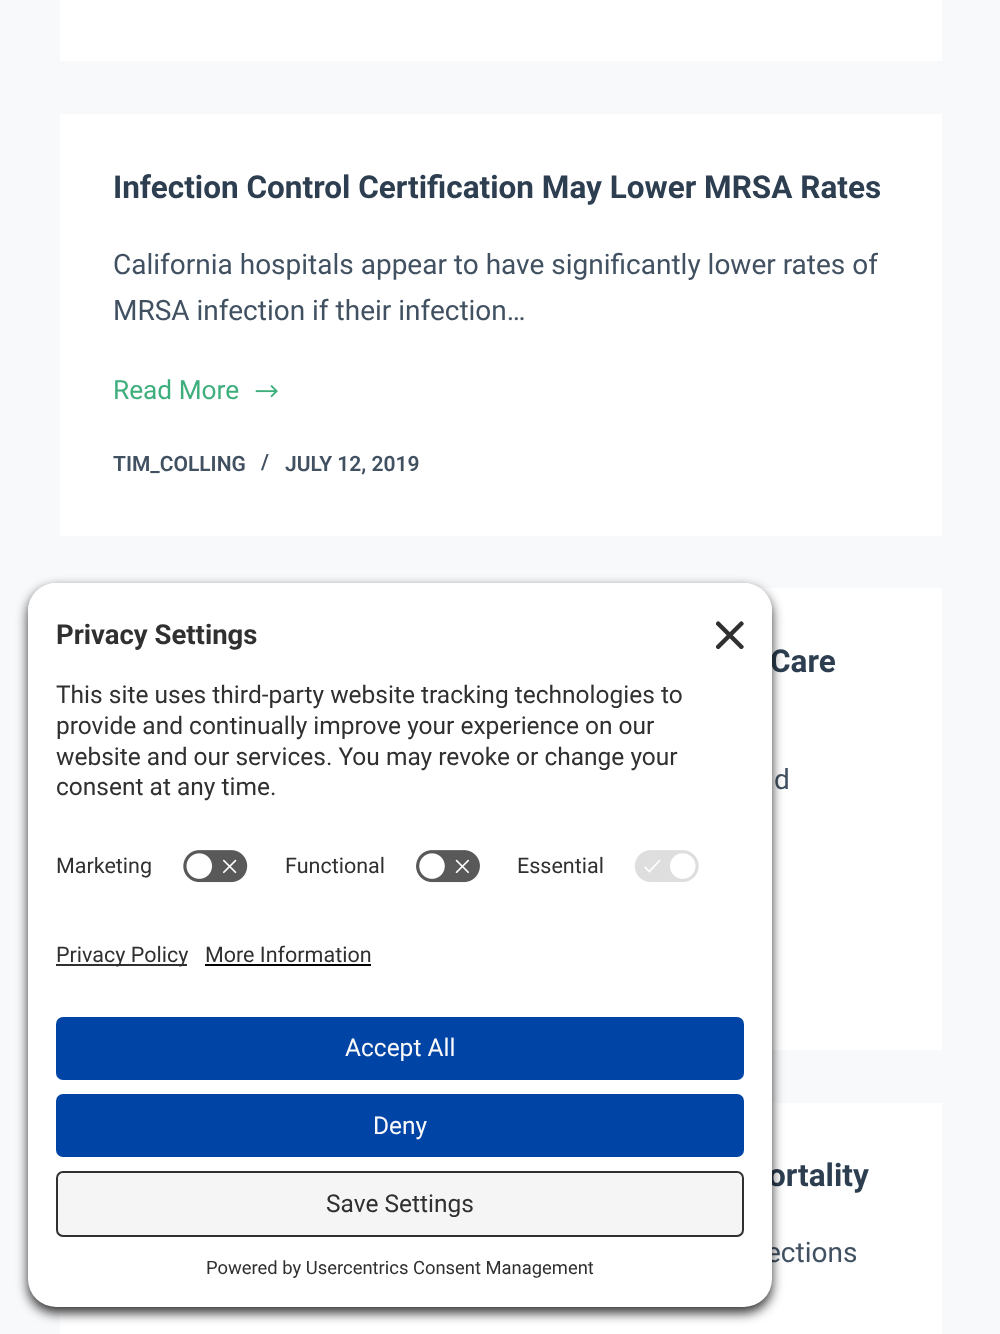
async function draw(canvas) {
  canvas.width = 1000
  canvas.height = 1334
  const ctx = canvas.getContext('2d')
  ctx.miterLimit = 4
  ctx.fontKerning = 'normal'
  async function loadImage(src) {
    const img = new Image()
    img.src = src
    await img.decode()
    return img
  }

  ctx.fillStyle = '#f8f9fb'
  ctx.fillRect(0, 0, 1000, 1334)
  ctx.fillStyle = '#fff'
  ctx.fillRect(60, 0, 882, 61)
  ctx.fillRect(60, 114, 882, 422)
  ctx.font = 'bold 31.5px Roboto'
  ctx.fillStyle = '#2c3e50'
  ctx.fillText('Infection Control Certification May Lower MRSA Rates', 113, 198)
  ctx.font = '28px Roboto'
  ctx.fillStyle = '#415161'
  ctx.fillText('California hospitals appear to have significantly lower rates of', 113, 274)
  ctx.fillText('MRSA infection if their infection…', 113, 320)
  ctx.font = '26.25px Roboto'
  ctx.fillStyle = '#3eaf7c'
  ctx.fillText('Read More', 113, 399)
  ctx.drawImage(await loadImage('image0.png'), 255, 385, 23, 13)
  ctx.font = '600 21px Roboto'
  ctx.fillStyle = '#415161'
  ctx.fillText('TIM_COLLING', 113, 471)
  ctx.fillText('/', 261, 469)
  ctx.fillText('JULY 12, 2019', 285, 471)
  ctx.fillStyle = '#fff'
  ctx.fillRect(760, 588, 182, 462)
  ctx.font = 'bold 31.5px Roboto'
  ctx.fillStyle = '#2c3e50'
  ctx.fillText('Care', 770, 672)
  ctx.font = '28px Roboto'
  ctx.fillStyle = '#415161'
  ctx.fillText('d', 774, 789)
  ctx.fillStyle = '#fff'
  ctx.fillRect(60, 1103, 882, 231)
  ctx.font = 'bold 31.5px Roboto'
  ctx.fillStyle = '#2c3e50'
  ctx.fillText('ortality', 768, 1186)
  ctx.font = '28px Roboto'
  ctx.fillStyle = '#415161'
  ctx.fillText('ections', 766, 1262)
  ctx.fillStyle = '#000000cc'
  ctx.filter = 'blur(6px)'
  ctx.beginPath()
  ctx.roundRect(28, 588, 744, 725, 28)
  ctx.fill()
  ctx.filter = 'none'
  ctx.fillStyle = '#fff'
  ctx.beginPath()
  ctx.roundRect(28, 583, 744, 332, [28, 28, 0, 0])
  ctx.fill()
  ctx.beginPath()
  ctx.roundRect(28, 583, 744, 255, [28, 28, 0, 0])
  ctx.fill()
  ctx.font = 'bold 27.5px Roboto'
  ctx.fillStyle = '#303030'
  ctx.fillText('Privacy Settings', 56, 644)
  ctx.drawImage(await loadImage('image1.png'), 716, 621, 28, 28)
  ctx.font = '24.5px Roboto'
  ctx.fillText('This site uses third-party website tracking technologies to', 56, 703)
  ctx.fillText('provide and continually improve your experience on our', 56, 734)
  ctx.fillText('website and our services. You may revoke or change your', 56, 765)
  ctx.fillText('consent at any time.', 56, 795)
  ctx.font = '21.5px Roboto'
  ctx.fillText('Marketing', 56, 873)
  ctx.drawImage(await loadImage('image2.png'), 183, 850, 65, 33)
  ctx.fillText('Functional', 285, 873)
  ctx.drawImage(await loadImage('image3.png'), 416, 850, 64, 33)
  ctx.fillText('Essential', 517, 873)
  ctx.drawImage(await loadImage('image4.png'), 634, 850, 65, 32)
  ctx.fillStyle = '#fff'
  ctx.beginPath()
  ctx.roundRect(28, 915, 744, 392, [0, 0, 28, 28])
  ctx.fill()
  ctx.fillStyle = '#303030'
  ctx.fillRect(56, 964, 131, 2)
  ctx.fillText('Privacy Policy', 56, 962)
  ctx.fillText('More Information', 205, 962)
  ctx.fillStyle = '#000'
  ctx.fillRect(205, 964, 166, 2)
  ctx.fillStyle = '#0045a5'
  ctx.beginPath()
  ctx.roundRect(56, 1017, 688, 63, 7)
  ctx.fill()
  ctx.font = '24.5px Roboto'
  ctx.fillStyle = '#fafafa'
  ctx.fillText('Accept All', 345, 1056)
  ctx.fillStyle = '#0045a5'
  ctx.beginPath()
  ctx.roundRect(56, 1094, 688, 63, 7)
  ctx.fill()
  ctx.fillStyle = '#fafafa'
  ctx.fillText('Deny', 373, 1134)
  ctx.fillStyle = '#f5f5f5'
  ctx.beginPath()
  ctx.roundRect(57, 1172, 686, 64, 6)
  ctx.fill()
  ctx.strokeStyle = '#303030'
  ctx.lineWidth = 2
  ctx.stroke()
  ctx.fillStyle = '#303030'
  ctx.fillText('Save Settings', 326, 1212)
  ctx.font = '18.4px Roboto'
  ctx.fillText('Powered by Usercentrics Consent Management', 206, 1274)
}

draw(document.querySelector('canvas'))
